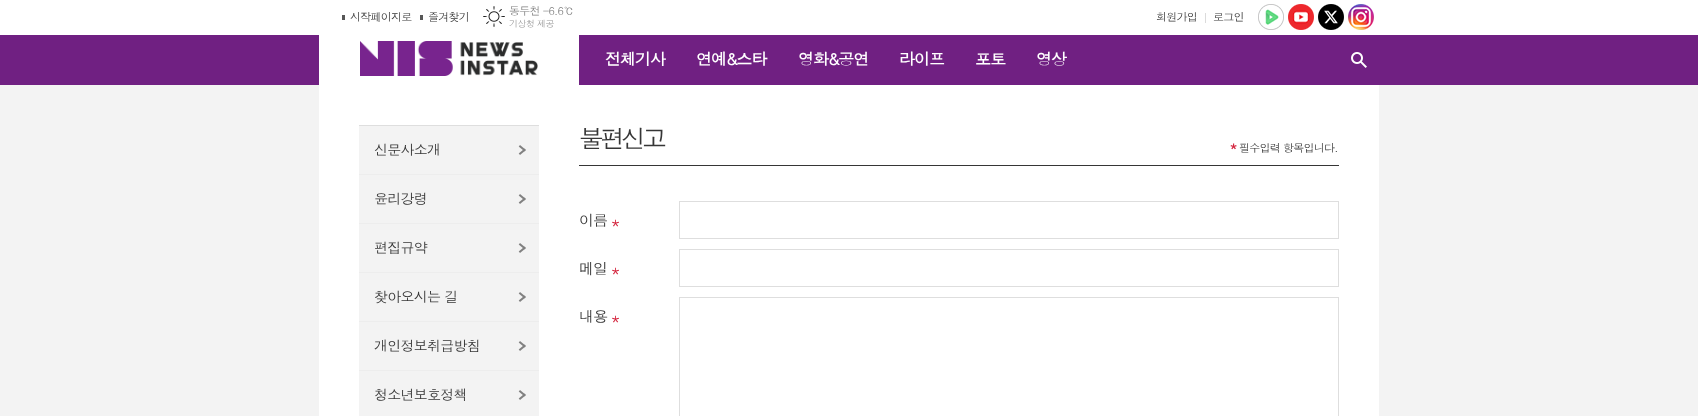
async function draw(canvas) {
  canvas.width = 1698
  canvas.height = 416
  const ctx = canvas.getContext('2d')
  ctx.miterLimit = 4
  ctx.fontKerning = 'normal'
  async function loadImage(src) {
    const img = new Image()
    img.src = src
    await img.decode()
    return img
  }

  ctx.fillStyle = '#f3f3f3'
  ctx.fillRect(0, 0, 1698, 416)
  ctx.fillStyle = '#fff'
  ctx.fillRect(0, 0, 1698, 35)
  ctx.fillStyle = '#575757'
  ctx.fillRect(342, 15, 3, 5)
  ctx.letterSpacing = '-0.75px'
  ctx.font = '11px Dotum'
  ctx.fillStyle = '#363636'
  ctx.fillText('시작페이지로', 350, 21)
  ctx.fillStyle = '#575757'
  ctx.fillRect(420, 15, 3, 5)
  ctx.fillStyle = '#363636'
  ctx.fillText('즐겨찾기', 428, 21)
  ctx.drawImage(await loadImage('image0.png'), 483, 6, 22, 21)
  ctx.fillStyle = '#808080'
  ctx.fillText('동두천 -6.6℃', 509, 15)
  ctx.letterSpacing = '-0.5px'
  ctx.font = '9px Dotum'
  ctx.fillStyle = '#999'
  ctx.fillText('기상청 제공', 509, 27)
  ctx.letterSpacing = '-0.75px'
  ctx.font = '11px Dotum'
  ctx.fillStyle = '#363636'
  ctx.fillText('회원가입', 1156, 21)
  ctx.fillStyle = '#dbdbdb'
  ctx.fillRect(1205, 13, 1, 10)
  ctx.fillStyle = '#363636'
  ctx.fillText('로그인', 1213, 21)
  ctx.drawImage(await loadImage('image1.png'), 1258, 4, 26, 26)
  ctx.drawImage(await loadImage('image2.png'), 1288, 4, 26, 26)
  ctx.drawImage(await loadImage('image3.png'), 1318, 4, 26, 26)
  ctx.drawImage(await loadImage('image4.png'), 1348, 4, 26, 26)
  ctx.fillStyle = '#702082'
  ctx.fillRect(0, 35, 1698, 50)
  ctx.fillStyle = '#fff'
  ctx.fillRect(319, 35, 260, 50)
  ctx.drawImage(await loadImage('image5.png'), 360, 41, 178, 35)
  ctx.letterSpacing = '-1px'
  ctx.font = 'bold 16px Dotum'
  ctx.fillText('전체기사', 605, 65)
  ctx.fillText('연예&스타', 696, 65)
  ctx.fillText('영화&공연', 798, 65)
  ctx.fillText('라이프', 899, 65)
  ctx.fillText('포토', 975, 65)
  ctx.fillText('영상', 1036, 65)
  ctx.drawImage(await loadImage('image6.png'), 1351, 52, 16, 16)
  ctx.fillRect(319, 85, 1060, 331)
  ctx.fillStyle = '#dedede'
  ctx.fillRect(359, 125, 180, 1)
  ctx.fillStyle = '#ededed'
  ctx.fillRect(359, 174, 180, 1)
  ctx.fillStyle = '#f3f3f3'
  ctx.fillRect(359, 126, 180, 48)
  ctx.drawImage(await loadImage('image7.png'), 518, 145, 8, 10)
  ctx.letterSpacing = '-0.75px'
  ctx.font = '14px Dotum'
  ctx.fillStyle = '#363636'
  ctx.fillText('신문사소개', 374, 155)
  ctx.fillStyle = '#ededed'
  ctx.fillRect(359, 223, 180, 1)
  ctx.fillStyle = '#f3f3f3'
  ctx.fillRect(359, 175, 180, 48)
  ctx.drawImage(await loadImage('image7.png'), 518, 194, 8, 10)
  ctx.fillStyle = '#363636'
  ctx.fillText('윤리강령', 374, 204)
  ctx.fillStyle = '#ededed'
  ctx.fillRect(359, 272, 180, 1)
  ctx.fillStyle = '#f3f3f3'
  ctx.fillRect(359, 224, 180, 48)
  ctx.drawImage(await loadImage('image7.png'), 518, 243, 8, 10)
  ctx.fillStyle = '#363636'
  ctx.fillText('편집규약', 374, 253)
  ctx.fillStyle = '#ededed'
  ctx.fillRect(359, 321, 180, 1)
  ctx.fillStyle = '#f3f3f3'
  ctx.fillRect(359, 273, 180, 48)
  ctx.drawImage(await loadImage('image7.png'), 518, 292, 8, 10)
  ctx.fillStyle = '#363636'
  ctx.fillText('찾아오시는 길', 374, 302)
  ctx.fillStyle = '#ededed'
  ctx.fillRect(359, 370, 180, 1)
  ctx.fillStyle = '#f3f3f3'
  ctx.fillRect(359, 322, 180, 48)
  ctx.drawImage(await loadImage('image7.png'), 518, 341, 8, 10)
  ctx.fillStyle = '#363636'
  ctx.fillText('개인정보취급방침', 374, 351)
  ctx.fillStyle = '#f3f3f3'
  ctx.fillRect(359, 371, 180, 45)
  ctx.drawImage(await loadImage('image7.png'), 518, 390, 8, 10)
  ctx.fillStyle = '#363636'
  ctx.fillText('청소년보호정책', 374, 400)
  ctx.fillRect(579, 165, 760, 1)
  ctx.letterSpacing = '-4px'
  ctx.font = '25px Dotum'
  ctx.fillText('불편신고', 579, 148)
  ctx.letterSpacing = '-1px'
  ctx.font = 'bold 15px Dotum'
  ctx.fillStyle = '#d4253e'
  ctx.fillText('*', 1229, 152)
  ctx.letterSpacing = '-0.75px'
  ctx.font = '11px Dotum'
  ctx.fillStyle = '#363636'
  ctx.fillText('필수입력 항목입니다.', 1239, 152)
  ctx.letterSpacing = '-1px'
  ctx.font = '15px Dotum'
  ctx.fillText('이름', 579, 226)
  ctx.font = '19px Dotum'
  ctx.fillStyle = '#d4253e'
  ctx.fillText('*', 610, 230)
  ctx.strokeStyle = '#dedede'
  ctx.strokeRect(679.5, 201.5, 659, 37)
  ctx.font = '15px Dotum'
  ctx.fillStyle = '#363636'
  ctx.fillText('메일', 579, 274)
  ctx.font = '19px Dotum'
  ctx.fillStyle = '#d4253e'
  ctx.fillText('*', 610, 278)
  ctx.strokeRect(679.5, 249.5, 659, 37)
  ctx.font = '15px Dotum'
  ctx.fillStyle = '#363636'
  ctx.fillText('내용', 579, 322)
  ctx.font = '19px Dotum'
  ctx.fillStyle = '#d4253e'
  ctx.fillText('*', 610, 326)
  ctx.strokeRect(679.5, 297.5, 659, 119)
}

draw(document.querySelector('canvas'))
